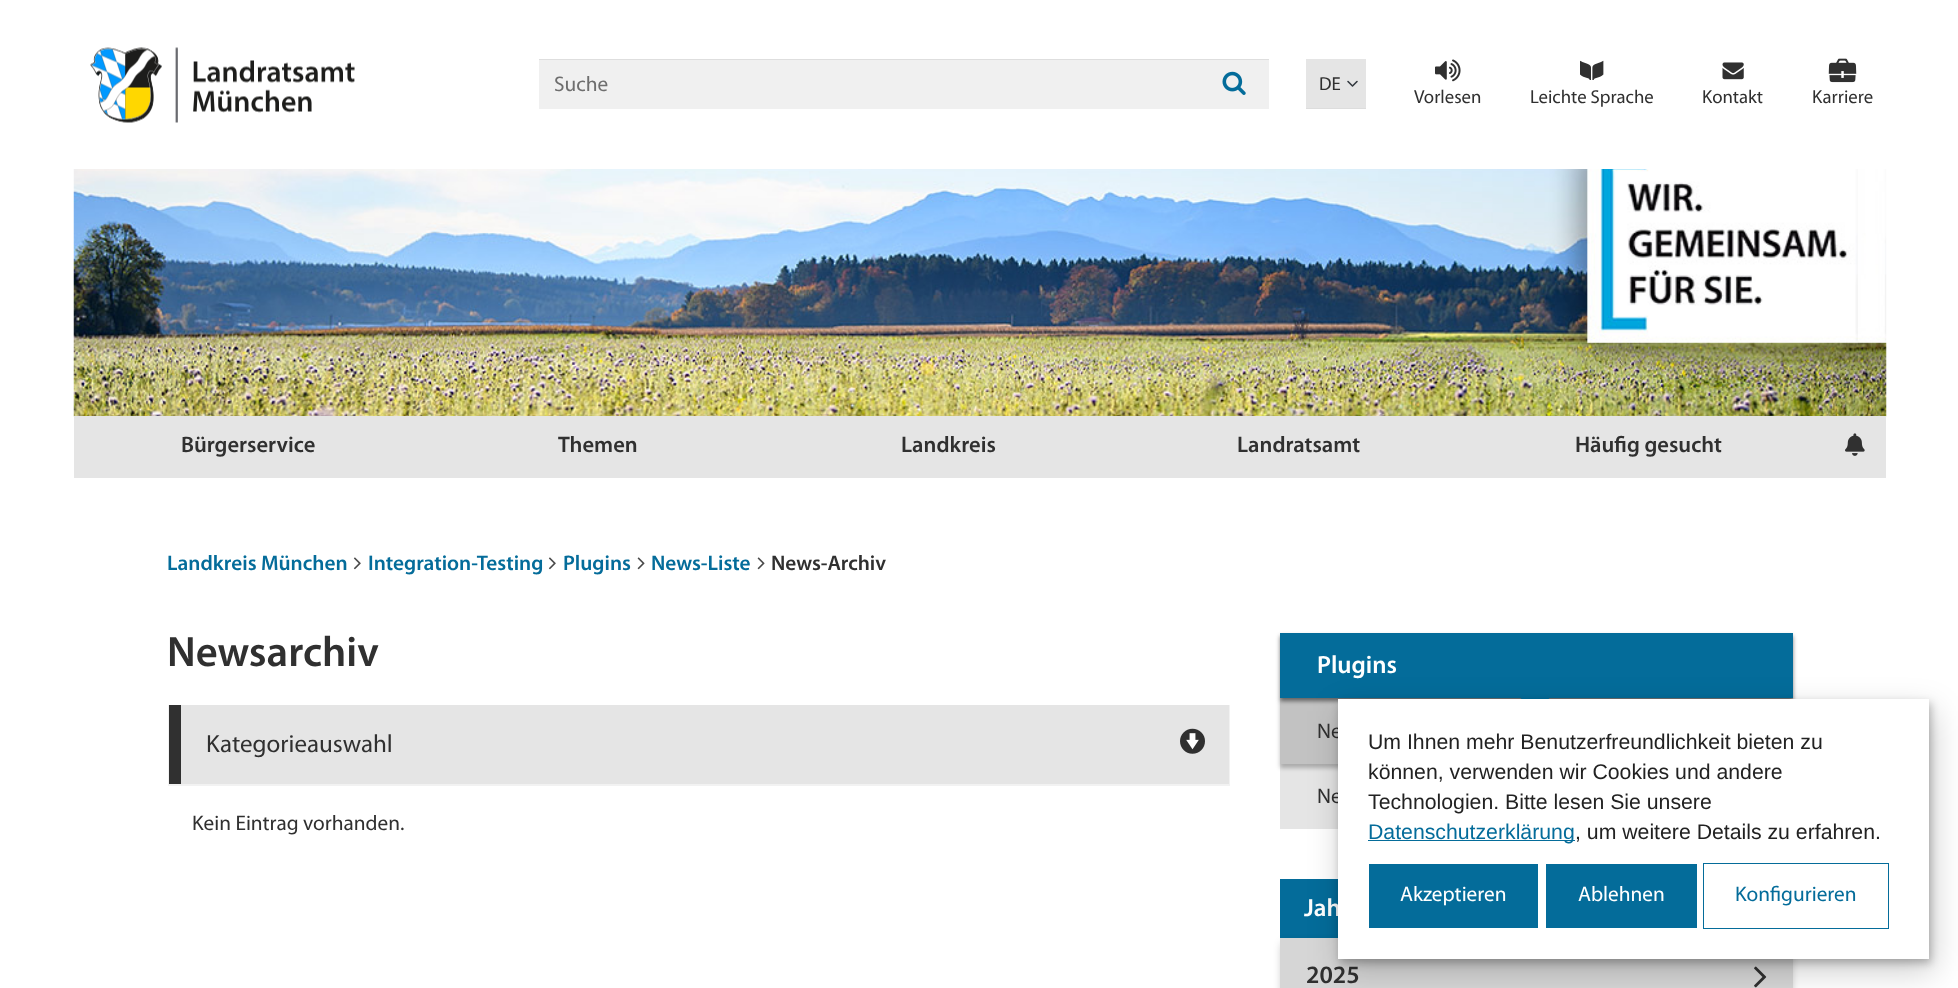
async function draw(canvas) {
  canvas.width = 1958
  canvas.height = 988
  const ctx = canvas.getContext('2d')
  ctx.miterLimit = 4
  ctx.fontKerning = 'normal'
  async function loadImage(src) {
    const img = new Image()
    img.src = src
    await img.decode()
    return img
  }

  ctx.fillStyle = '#fff'
  ctx.fillRect(0, 0, 1958, 988)
  ctx.drawImage(await loadImage('image0.png'), 90, 47, 265, 76)
  ctx.fillStyle = '#f0f0f0'
  ctx.fillRect(539, 60, 730, 49)
  ctx.fillStyle = '#dedede'
  ctx.fillRect(539, 59, 730, 1)
  ctx.font = '21.25px Myriad'
  ctx.fillStyle = '#6e6e6e'
  ctx.fillText('Suche', 554, 91)
  ctx.drawImage(await loadImage('image1.png'), 1222, 71, 24, 24)
  ctx.fillStyle = '#e5e5e5'
  ctx.fillRect(1306, 59, 60, 49)
  ctx.beginPath()
  ctx.moveTo(1348, 81.5)
  ctx.lineTo(1352.5, 86)
  ctx.lineTo(1357, 81.5)
  ctx.strokeStyle = '#343a40'
  ctx.lineWidth = 1.6
  ctx.lineCap = 'round'
  ctx.lineJoin = 'round'
  ctx.stroke()
  ctx.fillStyle = '#ddd'
  ctx.fillRect(1306, 108, 60, 1)
  ctx.font = '18.75px Myriad'
  ctx.fillStyle = '#303030'
  ctx.fillText('DE', 1319, 90)
  ctx.drawImage(await loadImage('image2.png'), 1435, 59, 26, 23)
  ctx.fillText('Vorlesen', 1414, 103)
  ctx.drawImage(await loadImage('image3.png'), 1580, 60, 24, 20)
  ctx.fillText('Leichte Sprache', 1530, 103)
  ctx.drawImage(await loadImage('image4.png'), 1722, 62, 22, 18)
  ctx.fillText('Kontakt', 1702, 103)
  ctx.drawImage(await loadImage('image5.png'), 1828, 58, 29, 25)
  ctx.fillText('Karriere', 1812, 103)
  ctx.drawImage(await loadImage('image6.png'), 73, 169, 1814, 248)
  ctx.fillStyle = '#e5e5e5'
  ctx.fillRect(74, 416, 1812, 62)
  ctx.font = '600 22.5px Myriad'
  ctx.fillStyle = '#303030'
  ctx.fillText('Bürgerservice', 181, 452)
  ctx.fillText('Themen', 558, 452)
  ctx.fillText('Landkreis', 901, 452)
  ctx.fillText('Landratsamt', 1237, 452)
  ctx.fillText('Häufig gesucht', 1575, 452)
  ctx.drawImage(await loadImage('image7.png'), 1845, 433, 20, 23)
  ctx.font = '600 21.25px Myriad'
  ctx.fillStyle = '#046c9a'
  ctx.fillText('Landkreis München', 167, 570)
  ctx.drawImage(await loadImage('image8.png'), 353, 557, 8, 13)
  ctx.fillText('Integration-Testing', 368, 570)
  ctx.drawImage(await loadImage('image8.png'), 548, 557, 8, 13)
  ctx.fillText('Plugins', 563, 570)
  ctx.drawImage(await loadImage('image9.png'), 637, 557, 8, 13)
  ctx.fillText('News-Liste', 651, 570)
  ctx.drawImage(await loadImage('image9.png'), 757, 557, 8, 13)
  ctx.fillStyle = '#303030'
  ctx.fillText('News-Archiv', 771, 570)
  ctx.font = '600 42.5px Myriad'
  ctx.fillText('Newsarchiv', 167, 666)
  ctx.fillStyle = '#0000000d'
  ctx.filter = 'blur(0.5px)'
  ctx.beginPath()
  ctx.rect(168, 705, 1062, 81)
  ctx.fill()
  ctx.filter = 'none'
  ctx.fillStyle = '#e5e5e5'
  ctx.fillRect(181, 705, 1048, 79)
  ctx.fillStyle = '#303030'
  ctx.fillRect(169, 705, 12, 79)
  ctx.font = '25px Myriad'
  ctx.fillText('Kategorieauswahl', 206, 752)
  ctx.fillStyle = '#fff'
  ctx.beginPath()
  ctx.arc(1192.5, 741.5, 11.5, 0, 2 * Math.PI)
  ctx.fill()
  ctx.drawImage(await loadImage('image10.png'), 1180, 728, 25, 26)
  ctx.font = '21.25px Myriad'
  ctx.fillStyle = '#303030'
  ctx.fillText('Kein Eintrag vorhanden.', 192, 830)
  ctx.fillStyle = '#e5e5e5'
  ctx.fillRect(1280, 764, 58, 65)
  ctx.fillStyle = '#00000040'
  ctx.filter = 'blur(2px)'
  ctx.beginPath()
  ctx.rect(1280, 700, 513, 68)
  ctx.fill()
  ctx.filter = 'none'
  ctx.fillStyle = '#c2c2c2'
  ctx.fillRect(1280, 698, 513, 66)
  ctx.fillStyle = '#00000080'
  ctx.filter = 'blur(2px)'
  ctx.beginPath()
  ctx.rect(1280, 636, 513, 65)
  ctx.fill()
  ctx.filter = 'none'
  ctx.fillStyle = '#046c9a'
  ctx.fillRect(1280, 633, 513, 65)
  ctx.font = '600 25px Myriad'
  ctx.fillStyle = '#fff'
  ctx.fillText('Plugins', 1317, 673)
  ctx.fillStyle = '#046c9a'
  ctx.beginPath()
  ctx.moveTo(1520, 697.5)
  ctx.lineTo(1550, 697.5)
  ctx.lineTo(1535, 712.5)
  ctx.closePath()
  ctx.fill()
  ctx.font = '21.25px Myriad'
  ctx.fillStyle = '#303030'
  ctx.fillText('Ne', 1317, 738)
  ctx.fillText('Ne', 1317, 803)
  ctx.fillStyle = '#046c9a'
  ctx.fillRect(1280, 879, 58, 59)
  ctx.font = '600 25px Myriad'
  ctx.fillStyle = '#fff'
  ctx.fillText('Jah', 1304, 916)
  ctx.fillStyle = '#00000054'
  ctx.filter = 'blur(5px)'
  ctx.beginPath()
  ctx.rect(1283, 944, 507, 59)
  ctx.fill()
  ctx.filter = 'none'
  ctx.fillStyle = '#d6d6d6'
  ctx.fillRect(1280, 938, 513, 50)
  ctx.fillStyle = '#303030'
  ctx.fillText('2025', 1306, 983)
  ctx.drawImage(await loadImage('image11.png'), 1754, 966, 13, 22)
  ctx.fillStyle = '#00000033'
  ctx.filter = 'blur(16px)'
  ctx.beginPath()
  ctx.rect(1341, 711, 592, 260)
  ctx.fill()
  ctx.filter = 'none'
  ctx.fillStyle = '#00000040'
  ctx.filter = 'blur(4px)'
  ctx.beginPath()
  ctx.rect(1340, 703, 591, 260)
  ctx.fill()
  ctx.filter = 'none'
  ctx.fillStyle = '#fff'
  ctx.fillRect(1338, 699, 591, 260)
  ctx.font = '21.25px Liberation Sans'
  ctx.fillStyle = '#222'
  ctx.fillText('Um Ihnen mehr Benutzerfreundlichkeit bieten zu', 1368, 749)
  ctx.fillText('können, verwenden wir Cookies und andere', 1368, 779)
  ctx.fillText('Technologien. Bitte lesen Sie unsere', 1368, 809)
  ctx.fillStyle = '#046c9a'
  ctx.fillRect(1368, 840, 207, 1)
  ctx.fillText('Datenschutzerklärung', 1368, 839)
  ctx.fillStyle = '#222'
  ctx.fillText(', um weitere Details zu erfahren.', 1575, 839)
  ctx.fillStyle = '#046c9a'
  ctx.fillRect(1369, 864, 169, 64)
  ctx.font = '21.25px Myriad'
  ctx.fillStyle = '#fff'
  ctx.fillText('Akzeptieren', 1400, 901)
  ctx.fillStyle = '#046c9a'
  ctx.fillRect(1546, 864, 151, 64)
  ctx.fillStyle = '#fff'
  ctx.fillText('Ablehnen', 1578, 901)
  ctx.strokeStyle = '#046c9a'
  ctx.lineWidth = 1
  ctx.lineJoin = 'miter'
  ctx.strokeRect(1703.5, 863.5, 185, 65)
  ctx.fillStyle = '#046c9a'
  ctx.fillText('Konfigurieren', 1735, 901)
}

draw(document.querySelector('canvas'))
